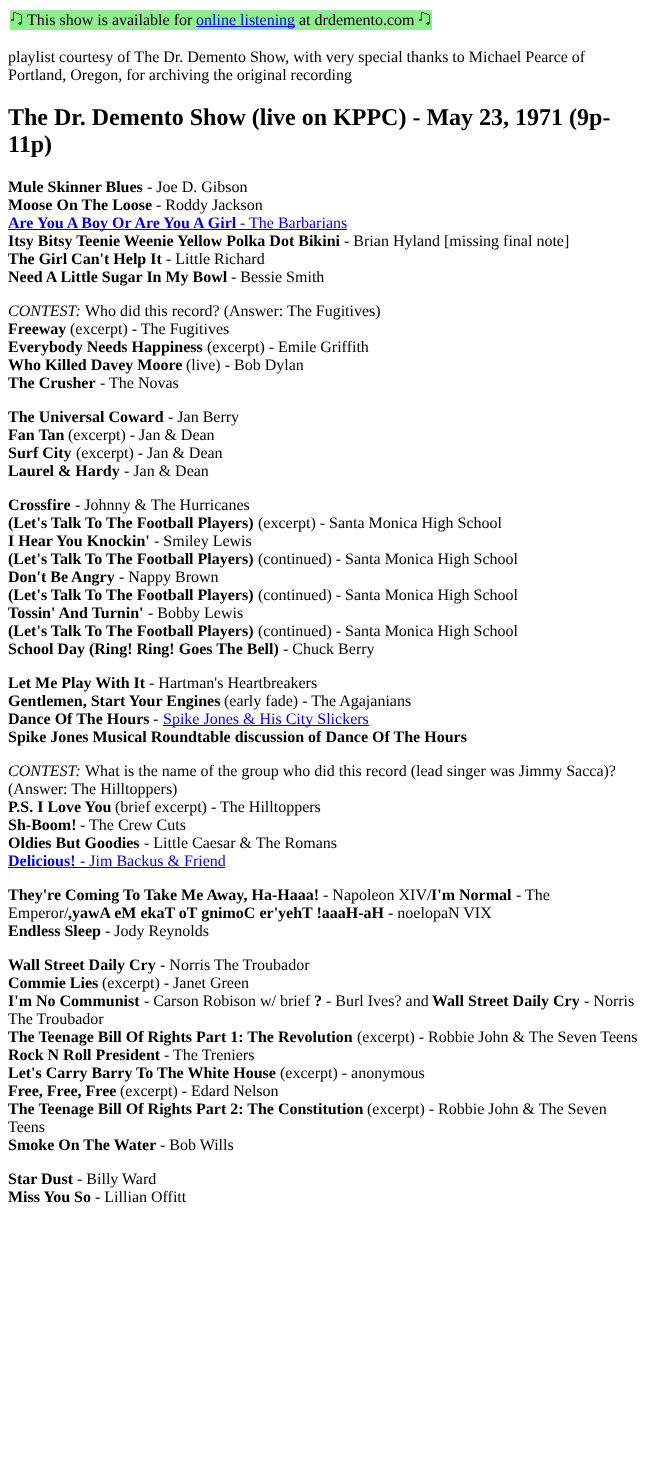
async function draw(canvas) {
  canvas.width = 647
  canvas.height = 1465
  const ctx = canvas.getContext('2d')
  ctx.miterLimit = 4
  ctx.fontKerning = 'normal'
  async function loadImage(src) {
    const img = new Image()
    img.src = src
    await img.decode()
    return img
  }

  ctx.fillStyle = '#fff'
  ctx.fillRect(0, 0, 647, 1465)
  ctx.fillStyle = '#90ee90'
  ctx.fillRect(10, 10, 422, 20)
  ctx.drawImage(await loadImage('image0.png'), 11, 12, 11, 13)
  ctx.font = '16px Liberation Serif'
  ctx.fillStyle = '#000'
  ctx.fillText('This show is available for', 27, 25)
  ctx.fillStyle = '#00e'
  ctx.fillRect(196, 26, 99, 1)
  ctx.fillText('online listening', 196, 25)
  ctx.fillStyle = '#000'
  ctx.fillText('at drdemento.com', 299, 25)
  ctx.drawImage(await loadImage('image0.png'), 419, 12, 11, 13)
  ctx.fillText('playlist courtesy of The Dr. Demento Show, with very special thanks to Michael Pearce of', 8, 62)
  ctx.fillText('Portland, Oregon, for archiving the original recording', 8, 80)
  ctx.font = 'bold 24px Liberation Serif'
  ctx.fillText('The Dr. Demento Show (live on KPPC) - May 23, 1971 (9p-', 8, 125)
  ctx.fillText('11p)', 8, 152)
  ctx.font = 'bold 16px Liberation Serif'
  ctx.fillText('Mule Skinner Blues', 8, 192)
  ctx.font = '16px Liberation Serif'
  ctx.fillText('- Joe D. Gibson', 147, 192)
  ctx.font = 'bold 16px Liberation Serif'
  ctx.fillText('Moose On The Loose', 8, 210)
  ctx.font = '16px Liberation Serif'
  ctx.fillText('- Roddy Jackson', 156, 210)
  ctx.fillStyle = '#00e'
  ctx.fillRect(8, 229, 339, 1)
  ctx.font = 'bold 16px Liberation Serif'
  ctx.fillText('Are You A Boy Or Are You A Girl', 8, 228)
  ctx.font = '16px Liberation Serif'
  ctx.fillText('- The Barbarians', 240, 228)
  ctx.font = 'bold 16px Liberation Serif'
  ctx.fillStyle = '#000'
  ctx.fillText('Itsy Bitsy Teenie Weenie Yellow Polka Dot Bikini', 8, 246)
  ctx.font = '16px Liberation Serif'
  ctx.fillText('- Brian Hyland [missing final note]', 344, 246)
  ctx.font = 'bold 16px Liberation Serif'
  ctx.fillText('The Girl Can\'t Help It', 8, 264)
  ctx.font = '16px Liberation Serif'
  ctx.fillText('- Little Richard', 166, 264)
  ctx.font = 'bold 16px Liberation Serif'
  ctx.fillText('Need A Little Sugar In My Bowl', 8, 282)
  ctx.font = '16px Liberation Serif'
  ctx.fillText('- Bessie Smith', 231, 282)
  ctx.font = 'italic 16px Liberation Serif'
  ctx.fillText('CONTEST:', 8, 316)
  ctx.font = '16px Liberation Serif'
  ctx.fillText('Who did this record? (Answer: The Fugitives)', 85, 316)
  ctx.font = 'bold 16px Liberation Serif'
  ctx.fillText('Freeway', 8, 334)
  ctx.font = '16px Liberation Serif'
  ctx.fillText('(excerpt) - The Fugitives', 70, 334)
  ctx.font = 'bold 16px Liberation Serif'
  ctx.fillText('Everybody Needs Happiness', 8, 352)
  ctx.font = '16px Liberation Serif'
  ctx.fillText('(excerpt) - Emile Griffith', 207, 352)
  ctx.font = 'bold 16px Liberation Serif'
  ctx.fillText('Who Killed Davey Moore', 8, 370)
  ctx.font = '16px Liberation Serif'
  ctx.fillText('(live) - Bob Dylan', 186, 370)
  ctx.font = 'bold 16px Liberation Serif'
  ctx.fillText('The Crusher', 8, 388)
  ctx.font = '16px Liberation Serif'
  ctx.fillText('- The Novas', 100, 388)
  ctx.font = 'bold 16px Liberation Serif'
  ctx.fillText('The Universal Coward', 8, 422)
  ctx.font = '16px Liberation Serif'
  ctx.fillText('- Jan Berry', 168, 422)
  ctx.font = 'bold 16px Liberation Serif'
  ctx.fillText('Fan Tan', 8, 440)
  ctx.font = '16px Liberation Serif'
  ctx.fillText('(excerpt) - Jan & Dean', 68, 440)
  ctx.font = 'bold 16px Liberation Serif'
  ctx.fillText('Surf City', 8, 458)
  ctx.font = '16px Liberation Serif'
  ctx.fillText('(excerpt) - Jan & Dean', 76, 458)
  ctx.font = 'bold 16px Liberation Serif'
  ctx.fillText('Laurel & Hardy', 8, 476)
  ctx.font = '16px Liberation Serif'
  ctx.fillText('- Jan & Dean', 124, 476)
  ctx.font = 'bold 16px Liberation Serif'
  ctx.fillText('Crossfire', 8, 510)
  ctx.font = '16px Liberation Serif'
  ctx.fillText('- Johnny & The Hurricanes', 75, 510)
  ctx.font = 'bold 16px Liberation Serif'
  ctx.fillText('(Let\'s Talk To The Football Players)', 8, 528)
  ctx.font = '16px Liberation Serif'
  ctx.fillText('(excerpt) - Santa Monica High School', 258, 528)
  ctx.font = 'bold 16px Liberation Serif'
  ctx.fillText('I Hear You Knockin\'', 8, 546)
  ctx.font = '16px Liberation Serif'
  ctx.fillText('- Smiley Lewis', 154, 546)
  ctx.font = 'bold 16px Liberation Serif'
  ctx.fillText('(Let\'s Talk To The Football Players)', 8, 564)
  ctx.font = '16px Liberation Serif'
  ctx.fillText('(continued) - Santa Monica High School', 258, 564)
  ctx.font = 'bold 16px Liberation Serif'
  ctx.fillText('Don\'t Be Angry', 8, 582)
  ctx.font = '16px Liberation Serif'
  ctx.fillText('- Nappy Brown', 119, 582)
  ctx.font = 'bold 16px Liberation Serif'
  ctx.fillText('(Let\'s Talk To The Football Players)', 8, 600)
  ctx.font = '16px Liberation Serif'
  ctx.fillText('(continued) - Santa Monica High School', 258, 600)
  ctx.font = 'bold 16px Liberation Serif'
  ctx.fillText('Tossin\' And Turnin\'', 8, 618)
  ctx.font = '16px Liberation Serif'
  ctx.fillText('- Bobby Lewis', 148, 618)
  ctx.font = 'bold 16px Liberation Serif'
  ctx.fillText('(Let\'s Talk To The Football Players)', 8, 636)
  ctx.font = '16px Liberation Serif'
  ctx.fillText('(continued) - Santa Monica High School', 258, 636)
  ctx.font = 'bold 16px Liberation Serif'
  ctx.fillText('School Day (Ring! Ring! Goes The Bell)', 8, 654)
  ctx.font = '16px Liberation Serif'
  ctx.fillText('- Chuck Berry', 283, 654)
  ctx.font = 'bold 16px Liberation Serif'
  ctx.fillText('Let Me Play With It', 8, 688)
  ctx.font = '16px Liberation Serif'
  ctx.fillText('- Hartman\'s Heartbreakers', 149, 688)
  ctx.font = 'bold 16px Liberation Serif'
  ctx.fillText('Gentlemen, Start Your Engines', 8, 706)
  ctx.font = '16px Liberation Serif'
  ctx.fillText('(early fade) - The Agajanians', 224, 706)
  ctx.font = 'bold 16px Liberation Serif'
  ctx.fillText('Dance Of The Hours', 8, 724)
  ctx.font = '16px Liberation Serif'
  ctx.fillText('-', 153, 724)
  ctx.fillStyle = '#00e'
  ctx.fillRect(163, 725, 206, 1)
  ctx.fillText('Spike Jones & His City Slickers', 163, 724)
  ctx.font = 'bold 16px Liberation Serif'
  ctx.fillStyle = '#000'
  ctx.fillText('Spike Jones Musical Roundtable discussion of Dance Of The Hours', 8, 742)
  ctx.font = 'italic 16px Liberation Serif'
  ctx.fillText('CONTEST:', 8, 776)
  ctx.font = '16px Liberation Serif'
  ctx.fillText('What is the name of the group who did this record (lead singer was Jimmy Sacca)?', 85, 776)
  ctx.fillText('(Answer: The Hilltoppers)', 8, 794)
  ctx.font = 'bold 16px Liberation Serif'
  ctx.fillText('P.S. I Love You', 8, 812)
  ctx.font = '16px Liberation Serif'
  ctx.fillText('(brief excerpt) - The Hilltoppers', 115, 812)
  ctx.font = 'bold 16px Liberation Serif'
  ctx.fillText('Sh-Boom!', 8, 830)
  ctx.font = '16px Liberation Serif'
  ctx.fillText('- The Crew Cuts', 80, 830)
  ctx.font = 'bold 16px Liberation Serif'
  ctx.fillText('Oldies But Goodies', 8, 848)
  ctx.font = '16px Liberation Serif'
  ctx.fillText('- Little Caesar & The Romans', 144, 848)
  ctx.font = 'bold 16px Liberation Serif'
  ctx.fillStyle = '#00e'
  ctx.fillText('Delicious!', 8, 866)
  ctx.fillRect(8, 867, 217, 1)
  ctx.font = '16px Liberation Serif'
  ctx.fillText('- Jim Backus & Friend', 80, 866)
  ctx.font = 'bold 16px Liberation Serif'
  ctx.fillStyle = '#000'
  ctx.fillText('They\'re Coming To Take Me Away, Ha-Haaa!', 8, 900)
  ctx.font = '16px Liberation Serif'
  ctx.fillText('- Napoleon XIV/', 323, 900)
  ctx.font = 'bold 16px Liberation Serif'
  ctx.fillText('I\'m Normal', 431, 900)
  ctx.font = '16px Liberation Serif'
  ctx.fillText('- The', 516, 900)
  ctx.fillText('Emperor/', 8, 918)
  ctx.font = 'bold 16px Liberation Serif'
  ctx.fillText(',yawA eM ekaT oT gnimoC er\'yehT !aaaH-aH', 68, 918)
  ctx.font = '16px Liberation Serif'
  ctx.fillText('- noelopaN VIX', 388, 918)
  ctx.font = 'bold 16px Liberation Serif'
  ctx.fillText('Endless Sleep', 8, 936)
  ctx.font = '16px Liberation Serif'
  ctx.fillText('- Jody Reynolds', 105, 936)
  ctx.font = 'bold 16px Liberation Serif'
  ctx.fillText('Wall Street Daily Cry', 8, 970)
  ctx.font = '16px Liberation Serif'
  ctx.fillText('- Norris The Troubador', 160, 970)
  ctx.font = 'bold 16px Liberation Serif'
  ctx.fillText('Commie Lies', 8, 988)
  ctx.font = '16px Liberation Serif'
  ctx.fillText('(excerpt) - Janet Green', 102, 988)
  ctx.font = 'bold 16px Liberation Serif'
  ctx.fillText('I\'m No Communist', 8, 1006)
  ctx.font = '16px Liberation Serif'
  ctx.fillText('- Carson Robison w/ brief', 144, 1006)
  ctx.font = 'bold 16px Liberation Serif'
  ctx.fillText('?', 314, 1006)
  ctx.font = '16px Liberation Serif'
  ctx.fillText('- Burl Ives? and', 326, 1006)
  ctx.font = 'bold 16px Liberation Serif'
  ctx.fillText('Wall Street Daily Cry', 432, 1006)
  ctx.font = '16px Liberation Serif'
  ctx.fillText('- Norris', 584, 1006)
  ctx.fillText('The Troubador', 8, 1024)
  ctx.font = 'bold 16px Liberation Serif'
  ctx.fillText('The Teenage Bill Of Rights Part 1: The Revolution', 8, 1042)
  ctx.font = '16px Liberation Serif'
  ctx.fillText('(excerpt) - Robbie John & The Seven Teens', 357, 1042)
  ctx.font = 'bold 16px Liberation Serif'
  ctx.fillText('Rock N Roll President', 8, 1060)
  ctx.font = '16px Liberation Serif'
  ctx.fillText('- The Treniers', 164, 1060)
  ctx.font = 'bold 16px Liberation Serif'
  ctx.fillText('Let\'s Carry Barry To The White House', 8, 1078)
  ctx.font = '16px Liberation Serif'
  ctx.fillText('(excerpt) - anonymous', 280, 1078)
  ctx.font = 'bold 16px Liberation Serif'
  ctx.fillText('Free, Free, Free', 8, 1096)
  ctx.font = '16px Liberation Serif'
  ctx.fillText('(excerpt) - Edard Nelson', 120, 1096)
  ctx.font = 'bold 16px Liberation Serif'
  ctx.fillText('The Teenage Bill Of Rights Part 2: The Constitution', 8, 1114)
  ctx.font = '16px Liberation Serif'
  ctx.fillText('(excerpt) - Robbie John & The Seven', 367, 1114)
  ctx.fillText('Teens', 8, 1132)
  ctx.font = 'bold 16px Liberation Serif'
  ctx.fillText('Smoke On The Water', 8, 1150)
  ctx.font = '16px Liberation Serif'
  ctx.fillText('- Bob Wills', 160, 1150)
  ctx.font = 'bold 16px Liberation Serif'
  ctx.fillText('Star Dust', 8, 1184)
  ctx.font = '16px Liberation Serif'
  ctx.fillText('- Billy Ward', 77, 1184)
  ctx.font = 'bold 16px Liberation Serif'
  ctx.fillText('Miss You So', 8, 1202)
  ctx.font = '16px Liberation Serif'
  ctx.fillText('- Lillian Offitt', 95, 1202)
}

draw(document.querySelector('canvas'))
